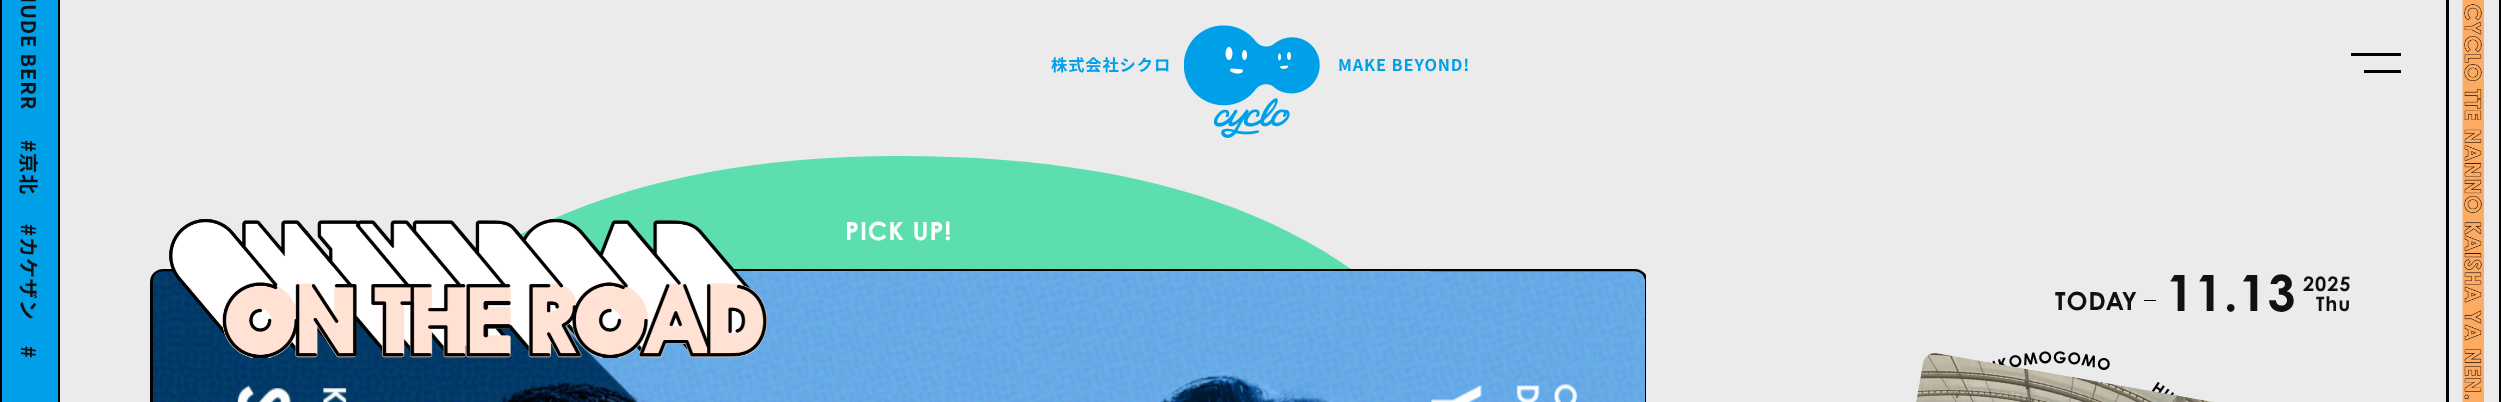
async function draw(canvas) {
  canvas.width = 2501
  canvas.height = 402
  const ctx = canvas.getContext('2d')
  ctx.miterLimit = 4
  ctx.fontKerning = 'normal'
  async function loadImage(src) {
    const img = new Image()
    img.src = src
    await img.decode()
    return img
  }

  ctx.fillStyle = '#ebebeb'
  ctx.fillRect(0, 0, 2501, 402)
  ctx.fillStyle = '#00a0e9'
  ctx.fillRect(2, 0, 56, 402)
  ctx.fillStyle = '#000'
  ctx.fillRect(58, 0, 2, 402)
  ctx.fillRect(0, 0, 2, 402)
  ctx.letterSpacing = '0.9px'
  ctx.font = 'bold 20px Noto Sans JP'
  ctx.fillStyle = '#111'
  ctx.save()
  ctx.translate(21, -12)
  ctx.rotate(90 * Math.PI / 180)
  ctx.fillText('NUDE BERR', 0, 0)
  ctx.restore()
  ctx.save()
  ctx.translate(21, 140)
  ctx.rotate(90 * Math.PI / 180)
  ctx.fillText('#', 0, 0)
  ctx.restore()
  ctx.save()
  ctx.translate(21, 153)
  ctx.rotate(90 * Math.PI / 180)
  ctx.fillText('京北', 0, 0)
  ctx.restore()
  ctx.save()
  ctx.translate(21, 224)
  ctx.rotate(90 * Math.PI / 180)
  ctx.fillText('#', 0, 0)
  ctx.restore()
  ctx.save()
  ctx.translate(21, 237)
  ctx.rotate(90 * Math.PI / 180)
  ctx.fillText('カケザン', 0, 0)
  ctx.restore()
  ctx.save()
  ctx.translate(21, 346)
  ctx.rotate(90 * Math.PI / 180)
  ctx.fillText('#', 0, 0)
  ctx.restore()
  ctx.fillStyle = '#5cdeaf'
  ctx.beginPath()
  ctx.moveTo(225, 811)
  ctx.bezierCurveTo(225, 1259, 468, 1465, 899, 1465)
  ctx.bezierCurveTo(1383, 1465, 1572, 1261, 1572, 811)
  ctx.bezierCurveTo(1572, 360, 1354, 156, 899, 156)
  ctx.bezierCurveTo(444, 156, 225, 395, 225, 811)
  ctx.closePath()
  ctx.fill()
  ctx.save()
  ctx.beginPath()
  ctx.rect(150, 219, 1496, 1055)
  ctx.clip()
  ctx.beginPath()
  ctx.roundRect(151.5, 270.5, 1495, 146, 11.5)
  ctx.strokeStyle = '#000'
  ctx.lineWidth = 3
  ctx.stroke()
  ctx.restore()
  ctx.drawImage(await loadImage('image1.png'), 153, 271, 1492, 131)
  ctx.drawImage(await loadImage('image0.png'), 169, 219, 599, 139)
  ctx.font = 'bold 25px Century Gothic'
  ctx.fillStyle = '#fff'
  ctx.fillText('PICK UP!', 845, 240)
  ctx.fillStyle = '#111'
  ctx.fillText('TODAY', 2055, 310)
  ctx.fillStyle = '#000'
  ctx.fillRect(2144, 300, 12, 1)
  ctx.font = 'bold 50px Century Gothic'
  ctx.fillStyle = '#111'
  ctx.fillText('11.13', 2166, 311)
  ctx.font = 'bold 20px Century Gothic'
  ctx.fillText('2025', 2303, 291)
  ctx.fillText('Thu', 2316, 311)
  ctx.drawImage(await loadImage('image2.png'), 1988, 351, 190, 45)
  ctx.drawImage(await loadImage('image3.png'), 1916, 353, 297, 49)
  ctx.drawImage(await loadImage('image4.png'), 2462, 0, 22, 402)
  ctx.fillStyle = '#000'
  ctx.fillRect(2499, 0, 2, 402)
  ctx.fillRect(2446, 0, 3, 402)
  ctx.font = 'bold 16.25px Noto Sans JP'
  ctx.fillStyle = '#00a0e9'
  ctx.fillText('株式会社シクロ', 1051, 71)
  ctx.drawImage(await loadImage('image5.png'), 1184, 25, 136, 113)
  ctx.fillText('MAKE BEYOND!', 1338, 71)
  ctx.fillStyle = '#000'
  ctx.fillRect(2351, 53, 50, 3)
  ctx.fillRect(2364, 70, 37, 3)
}

draw(document.querySelector('canvas'))
